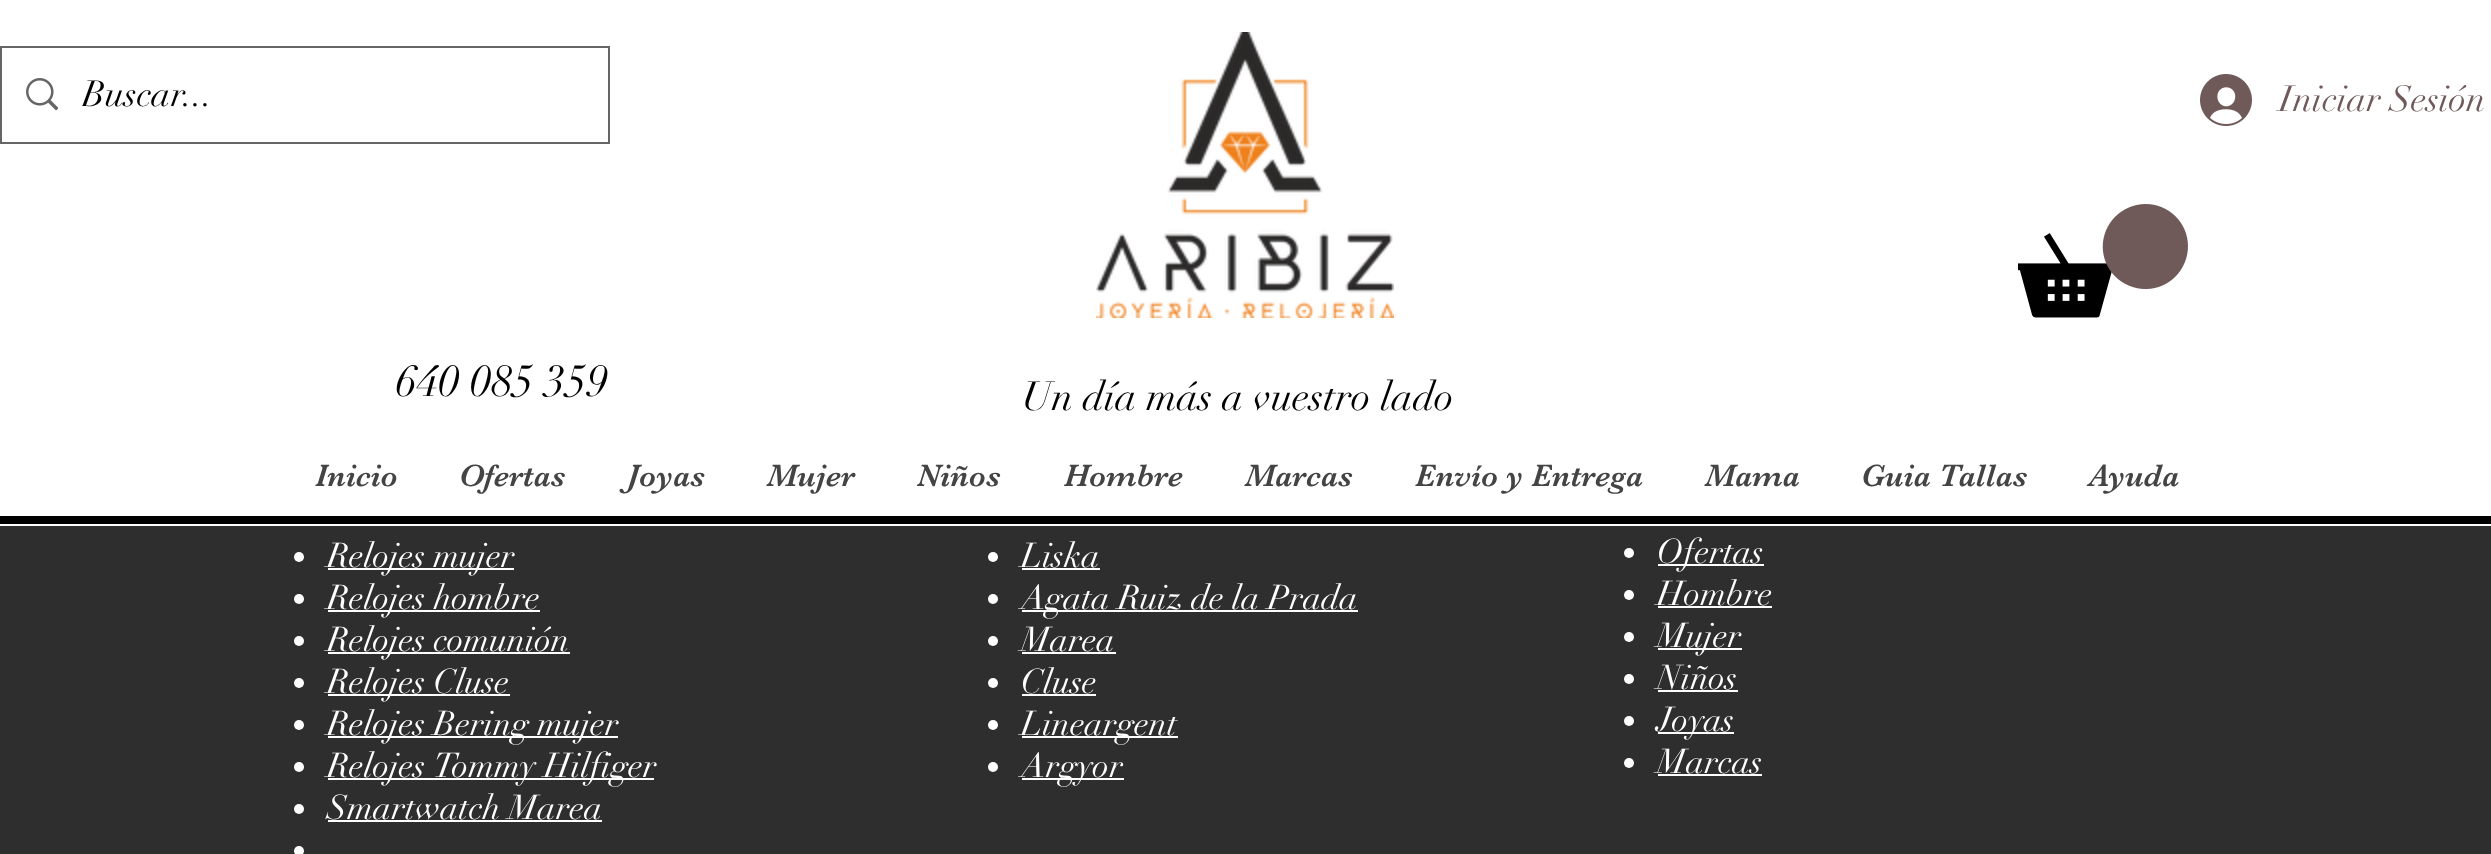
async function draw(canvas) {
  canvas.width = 2491
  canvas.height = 854
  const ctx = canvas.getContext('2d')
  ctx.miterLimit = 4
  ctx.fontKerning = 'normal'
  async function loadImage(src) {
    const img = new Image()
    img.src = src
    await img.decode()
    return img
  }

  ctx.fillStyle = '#2f2e2e'
  ctx.fillRect(0, 0, 2491, 854)
  ctx.fillStyle = '#fff'
  ctx.fillRect(0, 0, 2491, 526)
  ctx.strokeStyle = '#666'
  ctx.lineWidth = 2
  ctx.strokeRect(1, 47, 608, 96)
  ctx.drawImage(await loadImage('image0.png'), 26, 78, 32, 33)
  ctx.save()
  ctx.beginPath()
  ctx.rect(82, 72, 442, 44)
  ctx.clip()
  ctx.font = '36px didot'
  ctx.fillStyle = '#000'
  ctx.fillText('Buscar...', 82, 106)
  ctx.restore()
  ctx.drawImage(await loadImage('image1.png'), 1096, 32, 298, 286)
  ctx.drawImage(await loadImage('image2.png'), 2200, 74, 52, 52)
  ctx.font = '36px didot'
  ctx.fillStyle = '#705959'
  ctx.fillText('Iniciar Sesión', 2279, 111)
  ctx.drawImage(await loadImage('image3.png'), 2018, 204, 170, 114)
  ctx.font = '44px didot'
  ctx.fillStyle = '#000'
  ctx.fillText('640 085 359', 396, 396)
  ctx.font = '40px didot'
  ctx.fillText('Un día más a vuestro lado', 1022, 410)
  ctx.fillRect(0, 516, 2491, 8)
  ctx.font = '32px "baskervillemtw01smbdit"'
  ctx.fillStyle = '#444'
  ctx.fillText('Inicio', 315, 486)
  ctx.fillText('Ofertas', 459, 486)
  ctx.fillText('Joyas', 627, 486)
  ctx.fillText('Mujer', 767, 486)
  ctx.fillText('Niños', 917, 486)
  ctx.fillText('Hombre', 1064, 486)
  ctx.fillText('Marcas', 1245, 486)
  ctx.fillText('Envío y Entrega', 1415, 486)
  ctx.fillText('Mama', 1705, 486)
  ctx.fillText('Guia Tallas', 1861, 486)
  ctx.fillText('Ayuda', 2089, 486)
  ctx.fillStyle = '#fff'
  ctx.beginPath()
  ctx.arc(299, 557, 5, 0, 2 * Math.PI)
  ctx.fill()
  ctx.fillRect(328, 568, 186, 2)
  ctx.font = '34px didot'
  ctx.fillText('Relojes mujer', 327, 567)
  ctx.beginPath()
  ctx.arc(299, 599, 5, 0, 2 * Math.PI)
  ctx.fill()
  ctx.fillRect(328, 610, 212, 2)
  ctx.fillText('Relojes hombre', 327, 609)
  ctx.beginPath()
  ctx.arc(299, 641, 5, 0, 2 * Math.PI)
  ctx.fill()
  ctx.fillRect(328, 652, 242, 2)
  ctx.fillText('Relojes comunión', 327, 651)
  ctx.beginPath()
  ctx.arc(299, 683, 5, 0, 2 * Math.PI)
  ctx.fill()
  ctx.fillRect(328, 694, 182, 2)
  ctx.fillText('Relojes Cluse', 327, 693)
  ctx.beginPath()
  ctx.arc(299, 725, 5, 0, 2 * Math.PI)
  ctx.fill()
  ctx.fillRect(328, 736, 290, 2)
  ctx.fillText('Relojes Bering mujer', 327, 735)
  ctx.beginPath()
  ctx.arc(299, 767, 5, 0, 2 * Math.PI)
  ctx.fill()
  ctx.fillRect(328, 778, 326, 2)
  ctx.fillText('Relojes Tommy Hilfiger', 327, 777)
  ctx.beginPath()
  ctx.arc(299, 809, 5, 0, 2 * Math.PI)
  ctx.fill()
  ctx.fillText('Smartwatch Marea', 327, 819)
  ctx.fillRect(328, 820, 274, 2)
  ctx.beginPath()
  ctx.arc(299, 851, 5, 0, 2 * Math.PI)
  ctx.fill()
  ctx.beginPath()
  ctx.arc(993, 557, 5, 0, 2 * Math.PI)
  ctx.fill()
  ctx.fillText('Liska', 1021, 567)
  ctx.fillRect(1022, 568, 78, 2)
  ctx.beginPath()
  ctx.arc(993, 599, 5, 0, 2 * Math.PI)
  ctx.fill()
  ctx.fillRect(1022, 610, 336, 2)
  ctx.fillText('Agata Ruiz de la Prada', 1021, 609)
  ctx.beginPath()
  ctx.arc(993, 641, 5, 0, 2 * Math.PI)
  ctx.fill()
  ctx.fillText('Marea', 1021, 651)
  ctx.fillRect(1022, 652, 94, 2)
  ctx.beginPath()
  ctx.arc(993, 683, 5, 0, 2 * Math.PI)
  ctx.fill()
  ctx.fillText('Cluse', 1021, 693)
  ctx.fillRect(1022, 694, 74, 2)
  ctx.beginPath()
  ctx.arc(993, 725, 5, 0, 2 * Math.PI)
  ctx.fill()
  ctx.fillRect(1022, 736, 156, 2)
  ctx.fillText('Lineargent', 1021, 735)
  ctx.beginPath()
  ctx.arc(993, 767, 5, 0, 2 * Math.PI)
  ctx.fill()
  ctx.fillRect(1022, 778, 102, 2)
  ctx.fillText('Argyor', 1021, 777)
  ctx.beginPath()
  ctx.arc(1629, 553, 5, 0, 2 * Math.PI)
  ctx.fill()
  ctx.fillRect(1658, 564, 106, 2)
  ctx.fillText('Ofertas', 1657, 563)
  ctx.beginPath()
  ctx.arc(1629, 595, 5, 0, 2 * Math.PI)
  ctx.fill()
  ctx.fillText('Hombre', 1657, 605)
  ctx.fillRect(1658, 606, 114, 2)
  ctx.beginPath()
  ctx.arc(1629, 637, 5, 0, 2 * Math.PI)
  ctx.fill()
  ctx.fillRect(1658, 648, 84, 2)
  ctx.fillText('Mujer', 1657, 647)
  ctx.beginPath()
  ctx.arc(1629, 679, 5, 0, 2 * Math.PI)
  ctx.fill()
  ctx.fillText('Niños', 1657, 689)
  ctx.fillRect(1658, 690, 80, 2)
  ctx.beginPath()
  ctx.arc(1629, 721, 5, 0, 2 * Math.PI)
  ctx.fill()
  ctx.fillRect(1658, 732, 76, 2)
  ctx.fillText('Joyas', 1657, 731)
  ctx.beginPath()
  ctx.arc(1629, 763, 5, 0, 2 * Math.PI)
  ctx.fill()
  ctx.fillText('Marcas', 1657, 773)
  ctx.fillRect(1658, 774, 104, 2)
}

draw(document.querySelector('canvas'))
